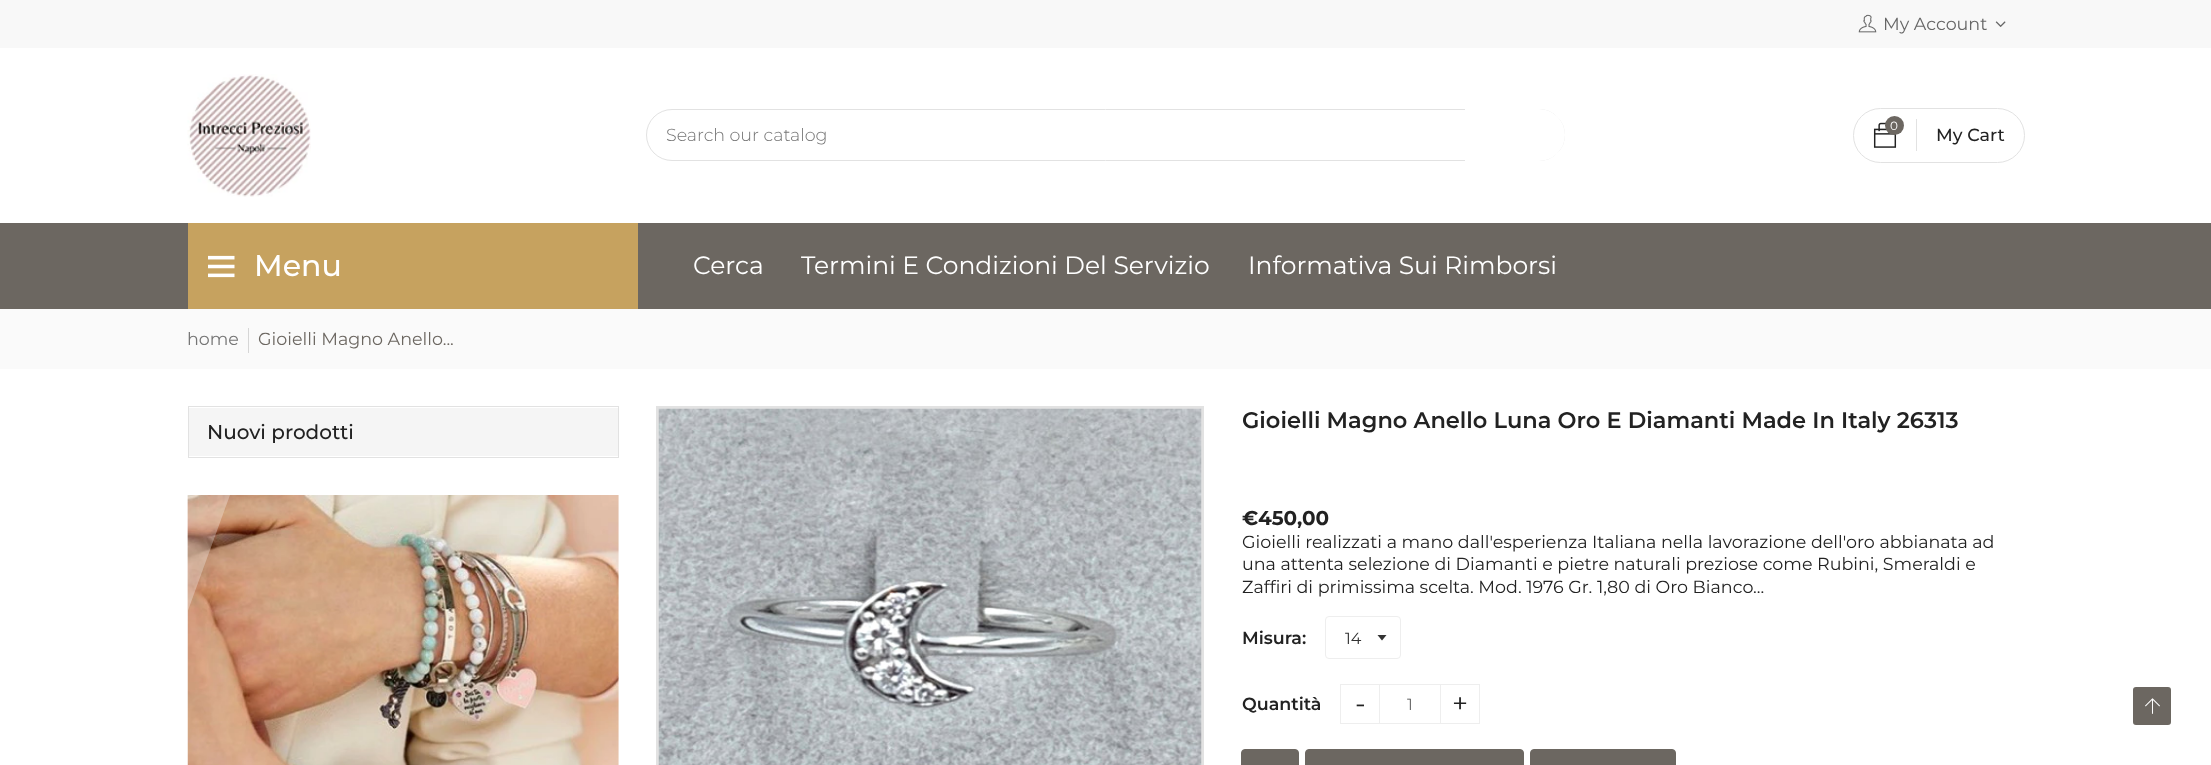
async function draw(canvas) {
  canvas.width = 2211
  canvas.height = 765
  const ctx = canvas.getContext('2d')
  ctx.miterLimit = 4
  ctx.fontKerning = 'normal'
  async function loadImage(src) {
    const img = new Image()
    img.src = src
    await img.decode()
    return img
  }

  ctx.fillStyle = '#fff'
  ctx.fillRect(0, 0, 2211, 765)
  ctx.fillStyle = '#f8f8f8'
  ctx.fillRect(0, 0, 2211, 48)
  ctx.drawImage(await loadImage('image0.png'), 1858, 14, 19, 19)
  ctx.font = '17.5px Montserrat'
  ctx.fillStyle = '#666'
  ctx.fillText('My Account', 1883, 30)
  ctx.drawImage(await loadImage('image1.png'), 1995, 21, 11, 6)
  ctx.drawImage(await loadImage('image2.png'), 187, 74, 124, 123)
  ctx.beginPath()
  ctx.roundRect(646.5, 109.5, 918, 51, 25.5)
  ctx.strokeStyle = '#e2e2e2'
  ctx.stroke()
  ctx.font = '300 17.5px Montserrat'
  ctx.fillStyle = '#757575'
  ctx.fillText('Search our catalog', 666, 141)
  ctx.fillStyle = '#fff'
  ctx.beginPath()
  ctx.roundRect(1465, 109, 100, 52, [0, 26, 26, 0])
  ctx.fill()
  ctx.beginPath()
  ctx.roundRect(1853.5, 108.5, 171, 54, 27)
  ctx.stroke()
  ctx.drawImage(await loadImage('image3.png'), 1873, 122, 24, 26)
  ctx.fillStyle = '#6c6761'
  ctx.beginPath()
  ctx.arc(1894.5, 125.5, 9.5, 0, 2 * Math.PI)
  ctx.fill()
  ctx.font = '12px Montserrat'
  ctx.fillStyle = '#fff'
  ctx.fillText('0', 1890, 130)
  ctx.fillStyle = '#e2e2e2'
  ctx.fillRect(1916, 119, 1, 32)
  ctx.font = '500 17.5px Montserrat'
  ctx.fillStyle = '#222'
  ctx.fillText('My Cart', 1936, 141)
  ctx.fillStyle = '#6c6761'
  ctx.fillRect(0, 223, 2211, 86)
  ctx.fillStyle = '#c6a25f'
  ctx.fillRect(188, 223, 450, 86)
  ctx.drawImage(await loadImage('image4.png'), 208, 255, 27, 23)
  ctx.font = '500 30px Montserrat'
  ctx.fillStyle = '#fff'
  ctx.fillText('Menu', 254, 276)
  ctx.font = '25px Montserrat'
  ctx.fillText('Cerca', 693, 274)
  ctx.fillText('Termini E Condizioni Del Servizio', 801, 274)
  ctx.fillText('Informativa Sui Rimborsi', 1248, 274)
  ctx.fillStyle = '#fafafa'
  ctx.fillRect(0, 309, 2211, 60)
  ctx.font = '17.5px Montserrat'
  ctx.fillStyle = '#757575'
  ctx.fillText('home', 187, 345)
  ctx.fillStyle = '#d6d6d6'
  ctx.fillRect(248, 328, 1, 25)
  ctx.fillStyle = '#6c6761'
  ctx.fillText('Gioielli Magno Anello...', 258, 345)
  ctx.strokeRect(188.5, 406.5, 430, 51)
  ctx.fillStyle = '#f5f5f5'
  ctx.fillRect(189, 408, 429, 48)
  ctx.font = '500 20px Montserrat'
  ctx.fillStyle = '#222'
  ctx.fillText('Nuovi prodotti', 207, 439)
  ctx.drawImage(await loadImage('image5.png'), 187, 495, 432, 270)
  ctx.save()
  ctx.beginPath()
  ctx.rect(188, 495, 431, 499)
  ctx.clip()
  ctx.fillStyle = '#ffffff4d'
  ctx.beginPath()
  ctx.moveTo(144, 495)
  ctx.lineTo(230, 495)
  ctx.lineTo(49, 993)
  ctx.lineTo(-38, 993)
  ctx.closePath()
  ctx.fill()
  ctx.restore()
  ctx.lineWidth = 3
  ctx.strokeRect(657.5, 407.5, 545, 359)
  ctx.drawImage(await loadImage('image6.png'), 658, 408, 544, 357)
  ctx.font = '600 22.5px Montserrat'
  ctx.fillText('Gioielli Magno Anello Luna Oro E Diamanti Made In Italy 26313', 1242, 428)
  ctx.font = 'bold 20px Montserrat'
  ctx.fillText('€450,00', 1242, 525)
  ctx.font = '17.5px Montserrat'
  ctx.fillText('Gioielli realizzati a mano dall\'esperienza Italiana nella lavorazione dell\'oro abbianata ad', 1242, 548)
  ctx.fillText('una attenta selezione di Diamanti e pietre naturali preziose come Rubini, Smeraldi e', 1242, 570)
  ctx.fillText('Zaffiri di primissima scelta. Mod. 1976 Gr. 1,80 di Oro Bianco...', 1242, 593)
  ctx.font = '600 17.5px Montserrat'
  ctx.fillText('Misura:', 1242, 644)
  ctx.fillStyle = '#333'
  ctx.beginPath()
  ctx.moveTo(1377.5, 635)
  ctx.lineTo(1382, 640.5)
  ctx.lineTo(1386.5, 635)
  ctx.closePath()
  ctx.fill()
  ctx.beginPath()
  ctx.roundRect(1325.5, 616.5, 75, 42, 3.5)
  ctx.strokeStyle = '#eee'
  ctx.lineWidth = 1
  ctx.stroke()
  ctx.font = '16px Montserrat'
  ctx.fillText('14', 1345, 644)
  ctx.font = '600 17.5px Montserrat'
  ctx.fillStyle = '#222'
  ctx.fillText('Quantità', 1242, 710)
  ctx.strokeRect(1340.5, 684.5, 139, 39)
  ctx.font = '28px Montserrat'
  ctx.fillText('-', 1355, 713)
  ctx.fillStyle = '#eee'
  ctx.fillRect(1440, 685, 1, 38)
  ctx.fillRect(1379, 685, 1, 38)
  ctx.font = '300 16px Montserrat'
  ctx.fillStyle = '#333'
  ctx.fillText('1', 1407, 710)
  ctx.font = '28px Montserrat'
  ctx.fillStyle = '#222'
  ctx.fillText('+', 1452, 713)
  ctx.fillStyle = '#6c6761'
  ctx.beginPath()
  ctx.roundRect(1241.5, 749.5, 57, 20, 3.5)
  ctx.fill()
  ctx.strokeStyle = '#6c6761'
  ctx.stroke()
  ctx.beginPath()
  ctx.roundRect(1305.5, 749.5, 218, 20, 3.5)
  ctx.fill()
  ctx.stroke()
  ctx.beginPath()
  ctx.roundRect(1530.5, 749.5, 145, 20, 3.5)
  ctx.fill()
  ctx.stroke()
  ctx.beginPath()
  ctx.roundRect(2131.5, 685.5, 41, 41, 4.5)
  ctx.fill()
  ctx.strokeStyle = '#fff'
  ctx.lineWidth = 3
  ctx.stroke()
  ctx.drawImage(await loadImage('image7.png'), 2145, 698, 15, 16)
}

draw(document.querySelector('canvas'))
